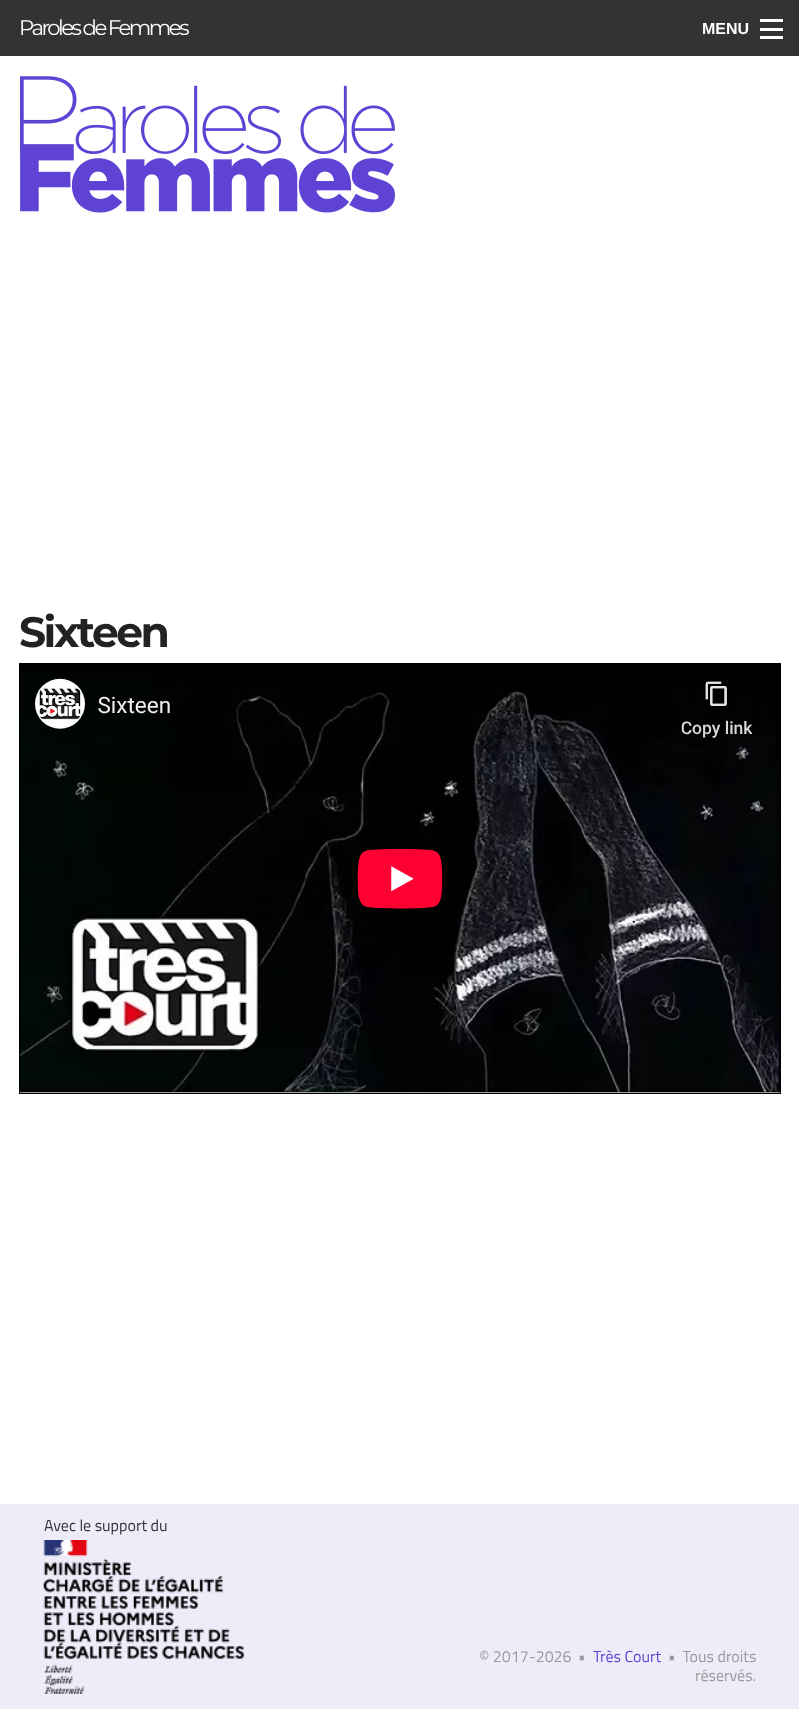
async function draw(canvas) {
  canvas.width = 799
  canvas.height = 1709
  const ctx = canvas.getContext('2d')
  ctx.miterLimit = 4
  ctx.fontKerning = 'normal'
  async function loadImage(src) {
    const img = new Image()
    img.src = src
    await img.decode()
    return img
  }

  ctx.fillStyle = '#fff'
  ctx.fillRect(0, 0, 799, 1709)
  ctx.fillStyle = '#333'
  ctx.fillRect(0, 0, 799, 56)
  ctx.letterSpacing = '-2.5px'
  ctx.font = '21.25px Montserrat'
  ctx.fillStyle = '#fff'
  ctx.fillText('Paroles de Femmes', 19, 35)
  ctx.letterSpacing = '0px'
  ctx.font = 'bold 16px Liberation Sans'
  ctx.fillText('MENU', 702, 34)
  ctx.fillRect(760, 36, 23, 3)
  ctx.fillRect(760, 28, 23, 3)
  ctx.fillRect(760, 19, 23, 3)
  ctx.drawImage(await loadImage('image0.png'), 20, 76, 375, 137)
  ctx.letterSpacing = '-2.5px'
  ctx.font = 'bold 42.5px Montserrat'
  ctx.fillStyle = '#222'
  ctx.fillText('Sixteen', 19, 647)
  ctx.strokeStyle = '#000'
  ctx.strokeRect(19.5, 663.5, 761, 430)
  ctx.drawImage(await loadImage('image1.png'), 20, 664, 760, 429)
  ctx.fillStyle = '#efecfa'
  ctx.fillRect(0, 1504, 799, 205)
  ctx.letterSpacing = '0px'
  ctx.font = '16px Titillium Web'
  ctx.fillStyle = '#333'
  ctx.fillText('Avec le support du', 44, 1531)
  ctx.drawImage(await loadImage('image2.png'), 43, 1540, 201, 154)
  ctx.fillStyle = '#999'
  ctx.fillText('© 2017-2026', 479, 1662)
  ctx.fillText('•', 578, 1662)
  ctx.fillStyle = '#5f43d4'
  ctx.fillText('Très Court', 593, 1662)
  ctx.fillStyle = '#999'
  ctx.fillText('•  Tous droits', 668, 1662)
  ctx.fillText('réservés.', 695, 1681)
}

draw(document.querySelector('canvas'))
